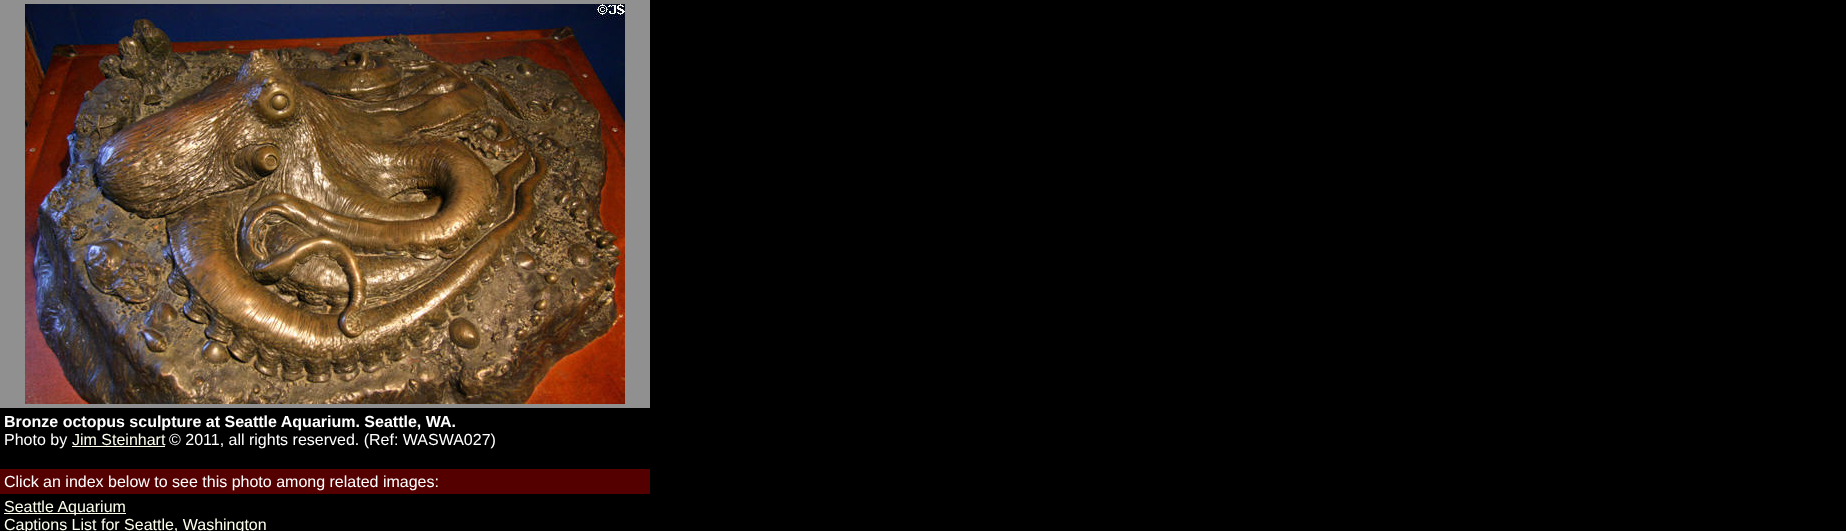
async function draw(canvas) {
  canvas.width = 1846
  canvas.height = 531
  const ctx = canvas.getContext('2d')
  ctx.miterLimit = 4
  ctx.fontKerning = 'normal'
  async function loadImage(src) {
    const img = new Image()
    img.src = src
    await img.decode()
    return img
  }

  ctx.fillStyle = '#000'
  ctx.fillRect(0, 0, 1846, 531)
  ctx.fillStyle = '#909090'
  ctx.fillRect(0, 0, 650, 408)
  ctx.drawImage(await loadImage('image0.png'), 25, 4, 600, 400)
  ctx.font = 'bold 16px Liberation Sans'
  ctx.fillStyle = '#fff'
  ctx.fillText('Bronze octopus sculpture at Seattle Aquarium. Seattle, WA.', 4, 427)
  ctx.font = '16px Liberation Sans'
  ctx.fillText('Photo by', 4, 445)
  ctx.fillStyle = '#ffe'
  ctx.fillText('Jim Steinhart', 72, 445)
  ctx.fillRect(72, 446, 93, 1)
  ctx.fillStyle = '#fff'
  ctx.fillText('© 2011, all rights reserved. (Ref: WASWA027)', 169, 445)
  ctx.fillStyle = '#500'
  ctx.fillRect(0, 469, 650, 25)
  ctx.fillStyle = '#fff'
  ctx.fillText('Click an index below to see this photo among related images:', 4, 487)
  ctx.fillStyle = '#ffe'
  ctx.fillRect(4, 513, 122, 1)
  ctx.fillText('Seattle Aquarium', 4, 512)
  ctx.fillText('Captions List for Seattle, Washington', 4, 530)
}

draw(document.querySelector('canvas'))
